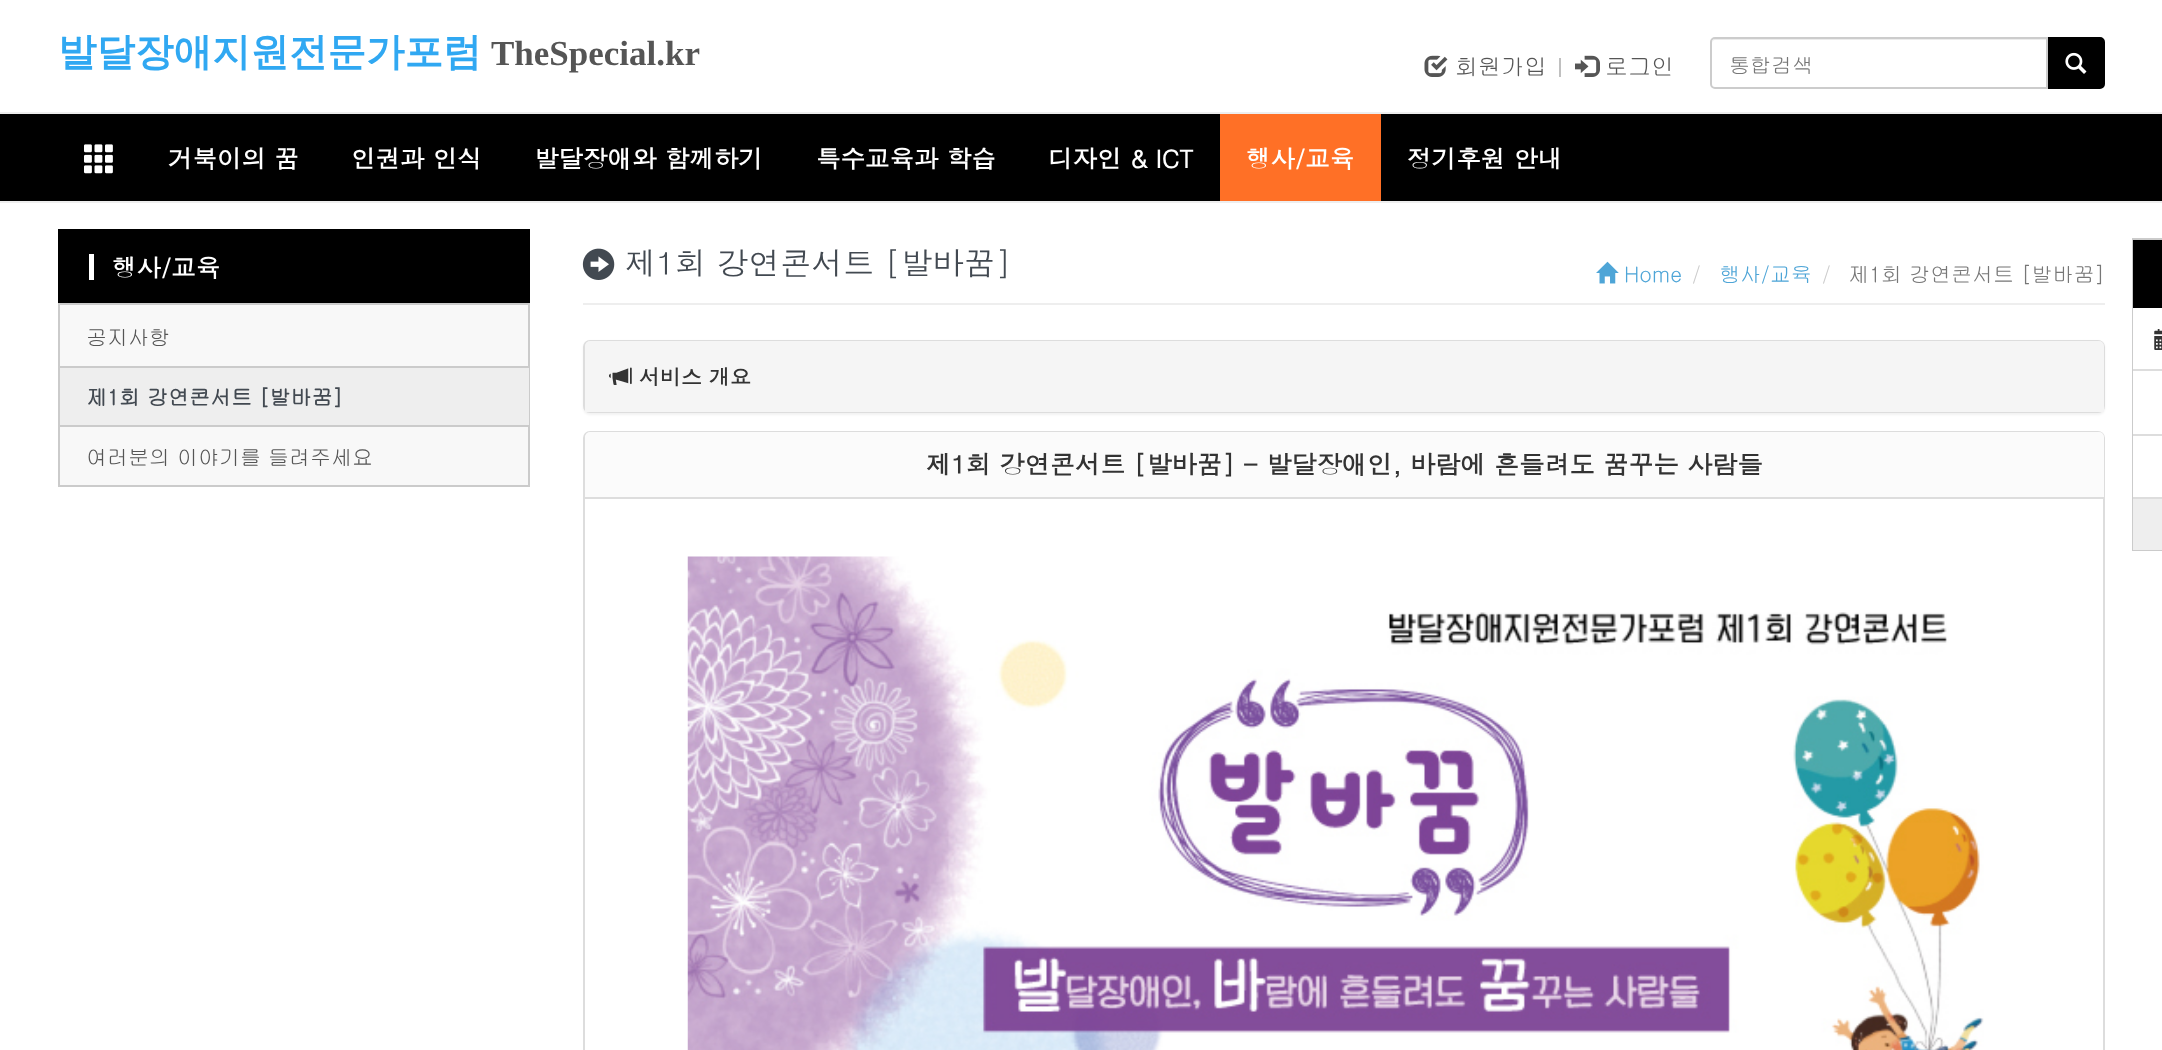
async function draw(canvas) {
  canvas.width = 2162
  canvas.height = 1050
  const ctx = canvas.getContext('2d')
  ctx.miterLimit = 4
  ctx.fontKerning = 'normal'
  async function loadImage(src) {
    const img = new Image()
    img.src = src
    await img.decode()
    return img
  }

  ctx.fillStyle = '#fff'
  ctx.fillRect(0, 0, 2162, 1050)
  ctx.font = 'bold 38.5px WenQuanYi Zen Hei'
  ctx.fillStyle = '#30a8f2'
  ctx.fillText('발달장애지원전문가포럼', 58, 65)
  ctx.font = 'bold 35px Liberation Serif'
  ctx.fillStyle = '#555'
  ctx.fillText('TheSpecial.kr', 491, 65)
  ctx.drawImage(await loadImage('image0.png'), 1424, 55, 24, 22)
  ctx.font = '23px Gulim'
  ctx.fillText('회원가입', 1455, 75)
  ctx.fillStyle = '#c0c0c0'
  ctx.fillRect(1559, 58, 2, 19)
  ctx.drawImage(await loadImage('image1.png'), 1575, 55, 25, 22)
  ctx.fillStyle = '#555'
  ctx.fillText('로그인', 1605, 75)
  ctx.fillStyle = '#000'
  ctx.beginPath()
  ctx.roundRect(2047, 38, 57, 50, [0, 4, 4, 0])
  ctx.fill()
  ctx.strokeStyle = '#000'
  ctx.lineWidth = 2
  ctx.stroke()
  ctx.fillStyle = '#fff'
  ctx.beginPath()
  ctx.roundRect(1710, 37, 338, 52, [5, 0, 0, 5])
  ctx.fill()
  ctx.fillStyle = '#ececec'
  ctx.beginPath()
  ctx.moveTo(1715, 40)
  ctx.lineTo(2046, 40)
  ctx.lineTo(2046, 39)
  ctx.lineTo(1716, 39)
  ctx.bezierCurveTo(1713, 39, 1712, 41, 1712, 44)
  ctx.bezierCurveTo(1712, 42, 1713, 40, 1715, 40)
  ctx.closePath()
  ctx.fill()
  ctx.beginPath()
  ctx.roundRect(1711, 38, 336, 50, [4, 0, 0, 4])
  ctx.strokeStyle = '#ccc'
  ctx.stroke()
  ctx.font = '21px Gulim'
  ctx.fillStyle = '#777'
  ctx.fillText('통합검색', 1729, 73)
  ctx.drawImage(await loadImage('image2.png'), 2065, 52, 22, 22)
  ctx.fillStyle = '#000'
  ctx.fillRect(0, 114, 2162, 87)
  ctx.fillStyle = '#eee'
  ctx.fillRect(0, 112, 2162, 2)
  ctx.fillRect(0, 201, 2162, 2)
  ctx.drawImage(await loadImage('image3.png'), 84, 144, 29, 30)
  ctx.font = 'bold 24.5px Dotum'
  ctx.fillStyle = '#fff'
  ctx.fillText('거북이의 꿈', 168, 168)
  ctx.fillText('인권과 인식', 351, 168)
  ctx.fillText('발달장애와 함께하기', 534, 168)
  ctx.fillText('특수교육과 학습', 816, 168)
  ctx.fillText('디자인 & ICT', 1048, 168)
  ctx.fillStyle = '#ff7026'
  ctx.fillRect(1220, 114, 161, 87)
  ctx.fillStyle = '#fff'
  ctx.fillText('행사/교육', 1246, 168)
  ctx.fillText('정기후원 안내', 1407, 168)
  ctx.fillStyle = '#000'
  ctx.fillRect(58, 229, 472, 74)
  ctx.fillStyle = '#fff'
  ctx.fillRect(89, 254, 5, 26)
  ctx.fillText('행사/교육', 112, 277)
  ctx.fillStyle = '#f8f8f8'
  ctx.beginPath()
  ctx.rect(59, 304, 470, 182)
  ctx.fill()
  ctx.strokeStyle = '#cbcbcb'
  ctx.stroke()
  ctx.fillStyle = '#cbcbcb'
  ctx.fillRect(60, 366, 469, 2)
  ctx.font = '21px Gulim'
  ctx.fillStyle = '#555'
  ctx.fillText('공지사항', 86, 345)
  ctx.fillStyle = '#eee'
  ctx.fillRect(60, 368, 469, 57)
  ctx.fillStyle = '#cbcbcb'
  ctx.fillRect(60, 425, 469, 2)
  ctx.font = 'bold 21px Gulim'
  ctx.fillStyle = '#424951'
  ctx.fillText('제1회 강연콘서트 [발바꿈]', 86, 405)
  ctx.font = '21px Gulim'
  ctx.fillStyle = '#555'
  ctx.fillText('여러분의 이야기를 들려주세요', 86, 465)
  ctx.drawImage(await loadImage('image4.png'), 582, 248, 33, 32)
  ctx.font = '31.5px Dotum'
  ctx.fillStyle = '#424951'
  ctx.fillText('제1회 강연콘서트 [발바꿈]', 625, 275)
  ctx.drawImage(await loadImage('image5.png'), 1596, 261, 23, 23)
  ctx.font = '21px Gulim'
  ctx.fillStyle = '#4ea5d7'
  ctx.fillText('Home', 1624, 282)
  ctx.fillStyle = '#ccc'
  ctx.fillText('/', 1692, 282)
  ctx.fillStyle = '#4ea5d7'
  ctx.fillText('행사/교육', 1719, 282)
  ctx.fillStyle = '#ccc'
  ctx.fillText('/', 1822, 282)
  ctx.fillStyle = '#777'
  ctx.fillText('제1회 강연콘서트 [발바꿈]', 1848, 282)
  ctx.fillStyle = '#eee'
  ctx.fillRect(583, 303, 1522, 2)
  ctx.fillStyle = '#0000000d'
  ctx.filter = 'blur(1px)'
  ctx.beginPath()
  ctx.roundRect(583, 341, 1522, 74, 7)
  ctx.fill()
  ctx.filter = 'none'
  ctx.beginPath()
  ctx.roundRect(584, 341, 1520, 71, 6)
  ctx.strokeStyle = '#ddd'
  ctx.stroke()
  ctx.fillStyle = '#f5f5f5'
  ctx.beginPath()
  ctx.roundRect(585, 341, 1519, 70, [5, 5, 0, 0])
  ctx.fill()
  ctx.fillRect(585, 411, 1519, 1)
  ctx.drawImage(await loadImage('image6.png'), 609, 367, 23, 18)
  ctx.font = 'bold 21px Dotum'
  ctx.fillStyle = '#333'
  ctx.fillText('서비스 개요', 639, 385)
  ctx.beginPath()
  ctx.roundRect(584, 432, 1520, 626, 6)
  ctx.stroke()
  ctx.fillStyle = '#ddd'
  ctx.fillRect(585, 497, 1519, 2)
  ctx.fillStyle = '#fbfbfb'
  ctx.beginPath()
  ctx.roundRect(585, 432, 1519, 65, [5, 5, 0, 0])
  ctx.fill()
  ctx.font = 'bold 25.2px Dotum'
  ctx.fillStyle = '#333'
  ctx.fillText('제1회 강연콘서트 [발바꿈] - 발달장애인, 바람에 흔들려도 꿈꾸는 사람들', 926, 474)
  ctx.drawImage(await loadImage('image7.png'), 687, 556, 1297, 494)
  ctx.strokeStyle = '#cbcbcb'
  ctx.strokeRect(2133, 239, 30, 311)
  ctx.fillStyle = '#000'
  ctx.fillRect(2133, 240, 29, 68)
  ctx.fillStyle = '#fff'
  ctx.fillRect(2133, 308, 1, 61)
  ctx.fillStyle = '#ddd'
  ctx.fillRect(2133, 369, 29, 2)
  ctx.drawImage(await loadImage('image8.png'), 2154, 329, 8, 21)
  ctx.fillStyle = '#fff'
  ctx.fillRect(2133, 371, 1, 63)
  ctx.fillStyle = '#ddd'
  ctx.fillRect(2133, 434, 29, 2)
  ctx.fillStyle = '#fff'
  ctx.fillRect(2133, 436, 1, 61)
  ctx.fillStyle = '#ddd'
  ctx.fillRect(2133, 497, 29, 2)
  ctx.fillStyle = '#eee'
  ctx.fillRect(2133, 499, 29, 51)
}

draw(document.querySelector('canvas'))
